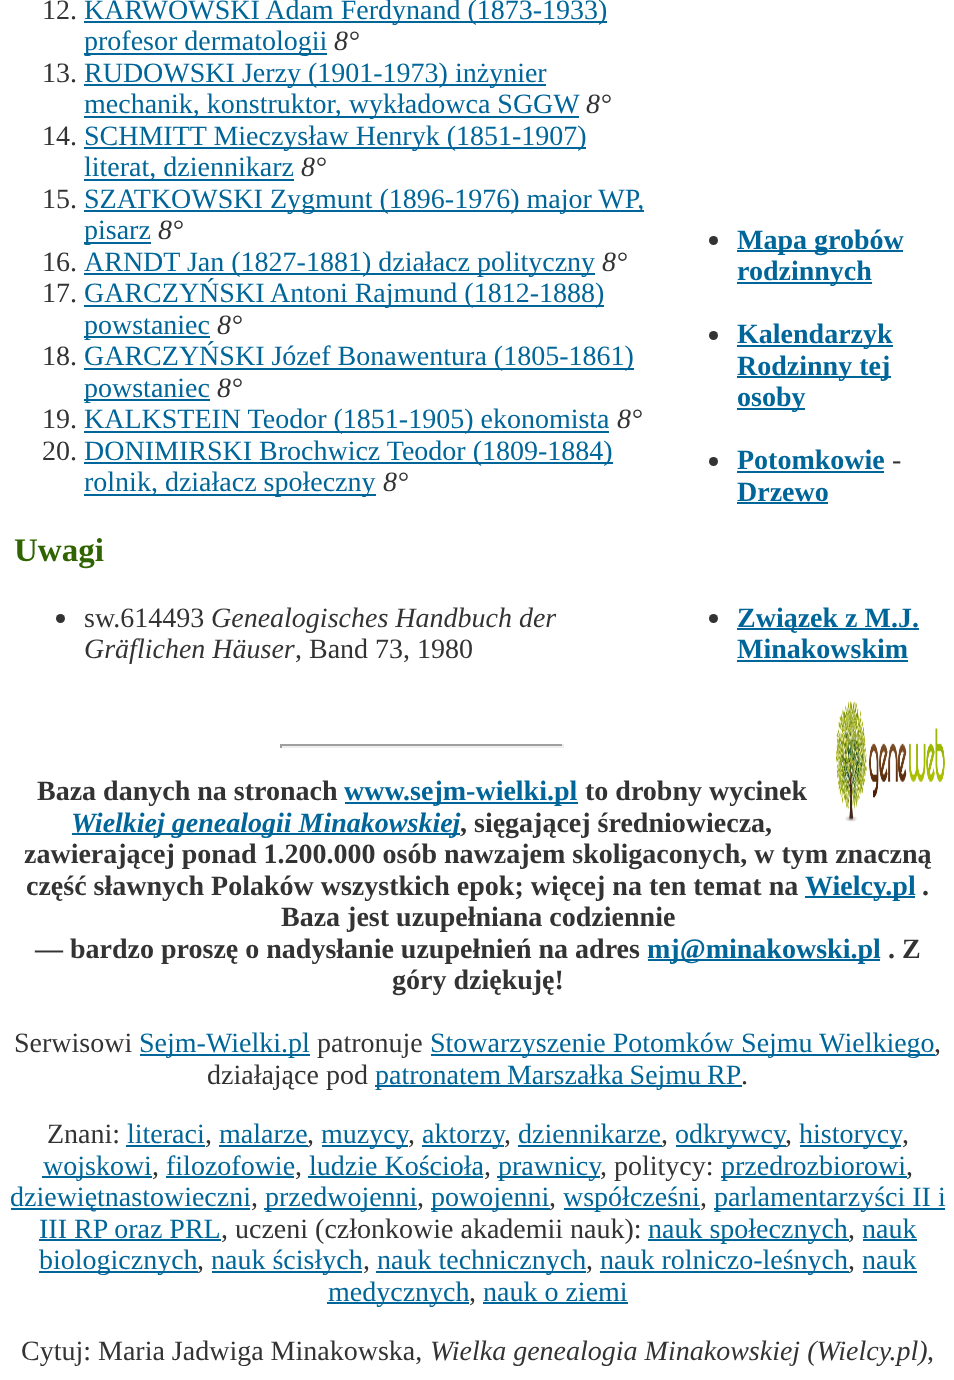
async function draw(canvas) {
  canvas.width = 954
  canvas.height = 1380
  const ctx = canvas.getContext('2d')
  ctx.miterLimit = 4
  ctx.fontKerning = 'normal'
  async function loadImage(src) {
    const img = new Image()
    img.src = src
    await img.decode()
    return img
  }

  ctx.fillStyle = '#fff'
  ctx.fillRect(0, 0, 954, 1380)
  ctx.font = '28px Liberation Serif'
  ctx.fillStyle = '#333'
  ctx.fillText('12.', 42, 19)
  ctx.fillStyle = '#069'
  ctx.fillRect(84, 21, 523, 2)
  ctx.fillText('KARWOWSKI Adam Ferdynand (1873-1933)', 84, 19)
  ctx.fillRect(84, 53, 243, 2)
  ctx.fillText('profesor dermatologii', 84, 50)
  ctx.font = 'italic 28px Liberation Serif'
  ctx.fillStyle = '#333'
  ctx.fillText('8°', 334, 50)
  ctx.font = '28px Liberation Serif'
  ctx.fillText('13.', 42, 82)
  ctx.fillStyle = '#069'
  ctx.fillRect(84, 84, 462, 2)
  ctx.fillText('RUDOWSKI Jerzy (1901-1973) inżynier', 84, 82)
  ctx.fillRect(84, 116, 495, 2)
  ctx.fillText('mechanik, konstruktor, wykładowca SGGW', 84, 113)
  ctx.font = 'italic 28px Liberation Serif'
  ctx.fillStyle = '#333'
  ctx.fillText('8°', 586, 113)
  ctx.font = '28px Liberation Serif'
  ctx.fillText('14.', 42, 145)
  ctx.fillStyle = '#069'
  ctx.fillRect(84, 147, 502, 2)
  ctx.fillText('SCHMITT Mieczysław Henryk (1851-1907)', 84, 145)
  ctx.fillRect(84, 179, 210, 2)
  ctx.fillText('literat, dziennikarz', 84, 176)
  ctx.font = 'italic 28px Liberation Serif'
  ctx.fillStyle = '#333'
  ctx.fillText('8°', 301, 176)
  ctx.font = '28px Liberation Serif'
  ctx.fillText('15.', 42, 208)
  ctx.fillStyle = '#069'
  ctx.fillRect(84, 210, 560, 2)
  ctx.fillText('SZATKOWSKI Zygmunt (1896-1976) major WP,', 84, 208)
  ctx.fillRect(84, 242, 67, 2)
  ctx.fillText('pisarz', 84, 239)
  ctx.font = 'italic 28px Liberation Serif'
  ctx.fillStyle = '#333'
  ctx.fillText('8°', 158, 239)
  ctx.font = '28px Liberation Serif'
  ctx.fillText('16.', 42, 271)
  ctx.fillStyle = '#069'
  ctx.fillRect(84, 273, 511, 2)
  ctx.fillText('ARNDT Jan (1827-1881) działacz polityczny', 84, 271)
  ctx.font = 'italic 28px Liberation Serif'
  ctx.fillStyle = '#333'
  ctx.fillText('8°', 602, 271)
  ctx.font = '28px Liberation Serif'
  ctx.fillText('17.', 42, 302)
  ctx.fillStyle = '#069'
  ctx.fillRect(84, 305, 520, 2)
  ctx.fillText('GARCZYŃSKI Antoni Rajmund (1812-1888)', 84, 302)
  ctx.fillRect(84, 336, 126, 2)
  ctx.fillText('powstaniec', 84, 334)
  ctx.font = 'italic 28px Liberation Serif'
  ctx.fillStyle = '#333'
  ctx.fillText('8°', 217, 334)
  ctx.font = '28px Liberation Serif'
  ctx.fillText('18.', 42, 365)
  ctx.fillStyle = '#069'
  ctx.fillRect(84, 368, 550, 2)
  ctx.fillText('GARCZYŃSKI Józef Bonawentura (1805-1861)', 84, 365)
  ctx.fillRect(84, 399, 126, 2)
  ctx.fillText('powstaniec', 84, 397)
  ctx.font = 'italic 28px Liberation Serif'
  ctx.fillStyle = '#333'
  ctx.fillText('8°', 217, 397)
  ctx.font = '28px Liberation Serif'
  ctx.fillText('19.', 42, 428)
  ctx.fillStyle = '#069'
  ctx.fillRect(84, 431, 525, 2)
  ctx.fillText('KALKSTEIN Teodor (1851-1905) ekonomista', 84, 428)
  ctx.font = 'italic 28px Liberation Serif'
  ctx.fillStyle = '#333'
  ctx.fillText('8°', 617, 428)
  ctx.font = '28px Liberation Serif'
  ctx.fillText('20.', 42, 460)
  ctx.fillStyle = '#069'
  ctx.fillRect(84, 462, 529, 2)
  ctx.fillText('DONIMIRSKI Brochwicz Teodor (1809-1884)', 84, 460)
  ctx.fillRect(84, 494, 292, 2)
  ctx.fillText('rolnik, działacz społeczny', 84, 491)
  ctx.font = 'italic 28px Liberation Serif'
  ctx.fillStyle = '#333'
  ctx.fillText('8°', 383, 491)
  ctx.font = 'bold 33px Liberation Serif'
  ctx.fillStyle = '#2f6400'
  ctx.fillText('Uwagi', 14, 561)
  ctx.fillStyle = '#333'
  ctx.beginPath()
  ctx.arc(60.5, 618.5, 4.5, 0, 2 * Math.PI)
  ctx.fill()
  ctx.font = '28px Liberation Serif'
  ctx.fillText('sw.614493', 84, 627)
  ctx.font = 'italic 28px Liberation Serif'
  ctx.fillText('Genealogisches Handbuch der', 211, 627)
  ctx.fillText('Gräflichen Häuser', 84, 658)
  ctx.font = '28px Liberation Serif'
  ctx.fillText(', Band 73, 1980', 295, 658)
  ctx.beginPath()
  ctx.arc(713.5, 240.5, 4.5, 0, 2 * Math.PI)
  ctx.fill()
  ctx.fillStyle = '#069'
  ctx.fillRect(737, 250, 166, 2)
  ctx.font = 'bold 28px Liberation Serif'
  ctx.fillText('Mapa grobów', 737, 249)
  ctx.fillRect(737, 282, 135, 2)
  ctx.fillText('rodzinnych', 737, 280)
  ctx.fillStyle = '#333'
  ctx.beginPath()
  ctx.arc(713.5, 335.5, 4.5, 0, 2 * Math.PI)
  ctx.fill()
  ctx.fillStyle = '#069'
  ctx.fillRect(737, 345, 156, 2)
  ctx.fillText('Kalendarzyk', 737, 343)
  ctx.fillRect(737, 376, 154, 2)
  ctx.fillText('Rodzinny tej', 737, 375)
  ctx.fillRect(737, 408, 68, 2)
  ctx.fillText('osoby', 737, 406)
  ctx.fillStyle = '#333'
  ctx.beginPath()
  ctx.arc(713.5, 461.5, 4.5, 0, 2 * Math.PI)
  ctx.fill()
  ctx.fillStyle = '#069'
  ctx.fillText('Potomkowie', 737, 469)
  ctx.fillRect(737, 471, 147, 2)
  ctx.font = '28px Liberation Serif'
  ctx.fillStyle = '#333'
  ctx.fillText('-', 892, 469)
  ctx.font = 'bold 28px Liberation Serif'
  ctx.fillStyle = '#069'
  ctx.fillText('Drzewo', 737, 501)
  ctx.fillRect(737, 502, 91, 2)
  ctx.fillStyle = '#333'
  ctx.beginPath()
  ctx.arc(713.5, 618.5, 4.5, 0, 2 * Math.PI)
  ctx.fill()
  ctx.fillStyle = '#069'
  ctx.fillRect(737, 628, 182, 2)
  ctx.fillText('Związek z M.J.', 737, 627)
  ctx.fillText('Minakowskim', 737, 658)
  ctx.fillRect(737, 660, 171, 2)
  ctx.fillStyle = '#9f9f9f'
  ctx.fillRect(280, 744, 284, 2)
  ctx.fillStyle = '#eee'
  ctx.fillRect(562, 744, 2, 4)
  ctx.fillRect(280, 746, 284, 2)
  ctx.fillStyle = '#9f9f9f'
  ctx.fillRect(280, 744, 2, 4)
  ctx.drawImage(await loadImage('image0.png'), 836, 700, 109, 122)
  ctx.fillStyle = '#333'
  ctx.fillText('Baza danych na stronach', 37, 800)
  ctx.fillStyle = '#069'
  ctx.fillRect(345, 802, 233, 2)
  ctx.fillText('www.sejm-wielki.pl', 344, 800)
  ctx.fillStyle = '#333'
  ctx.fillText('to drobny wycinek', 585, 800)
  ctx.fillStyle = '#069'
  ctx.fillRect(72, 833, 388, 2)
  ctx.font = 'italic bold 28px Liberation Serif'
  ctx.fillText('Wielkiej genealogii Minakowskiej', 71, 832)
  ctx.font = 'bold 28px Liberation Serif'
  ctx.fillStyle = '#333'
  ctx.fillText(', sięgającej średniowiecza,', 460, 832)
  ctx.fillText('zawierającej ponad 1.200.000 osób nawzajem skoligaconych, w tym znaczną', 24, 863)
  ctx.fillText('część sławnych Polaków wszystkich epok; więcej na ten temat na', 26, 895)
  ctx.fillStyle = '#069'
  ctx.fillRect(805, 896, 110, 2)
  ctx.fillText('Wielcy.pl', 805, 895)
  ctx.fillStyle = '#333'
  ctx.fillText('.', 922, 895)
  ctx.fillText('Baza jest uzupełniana codziennie', 281, 926)
  ctx.fillText('— bardzo proszę o nadysłanie uzupełnień na adres', 35, 958)
  ctx.fillStyle = '#069'
  ctx.fillRect(648, 959, 232, 2)
  ctx.fillText('mj@minakowski.pl', 647, 958)
  ctx.fillStyle = '#333'
  ctx.fillText('. Z', 888, 958)
  ctx.fillText('góry dziękuję!', 392, 989)
  ctx.font = '28px Liberation Serif'
  ctx.fillText('Serwisowi', 14, 1052)
  ctx.fillStyle = '#069'
  ctx.fillRect(140, 1054, 170, 2)
  ctx.fillText('Sejm-Wielki.pl', 139, 1052)
  ctx.fillStyle = '#333'
  ctx.fillText('patronuje', 317, 1052)
  ctx.fillStyle = '#069'
  ctx.fillRect(431, 1054, 504, 2)
  ctx.fillText('Stowarzyszenie Potomków Sejmu Wielkiego', 430, 1052)
  ctx.fillStyle = '#333'
  ctx.fillText(',', 934, 1052)
  ctx.fillText('działające pod', 207, 1084)
  ctx.fillStyle = '#069'
  ctx.fillRect(375, 1085, 367, 2)
  ctx.wordSpacing = '-1px'
  ctx.fillText('patronatem Marszałka Sejmu RP', 375, 1084)
  ctx.wordSpacing = '0px'
  ctx.fillStyle = '#333'
  ctx.fillText('.', 741, 1084)
  ctx.fillText('Znani:', 47, 1143)
  ctx.fillStyle = '#069'
  ctx.fillText('literaci', 127, 1143)
  ctx.fillRect(126, 1145, 79, 2)
  ctx.fillStyle = '#333'
  ctx.fillText(',', 205, 1143)
  ctx.fillStyle = '#069'
  ctx.fillText('malarze', 219, 1143)
  ctx.fillRect(219, 1145, 89, 2)
  ctx.fillStyle = '#333'
  ctx.fillText(',', 307, 1143)
  ctx.fillStyle = '#069'
  ctx.fillRect(322, 1145, 86, 2)
  ctx.fillText('muzycy', 321, 1143)
  ctx.fillStyle = '#333'
  ctx.fillText(',', 408, 1143)
  ctx.fillStyle = '#069'
  ctx.fillRect(422, 1145, 82, 2)
  ctx.fillText('aktorzy', 422, 1143)
  ctx.fillStyle = '#333'
  ctx.fillText(',', 504, 1143)
  ctx.fillStyle = '#069'
  ctx.fillText('dziennikarze', 518, 1143)
  ctx.fillRect(518, 1145, 144, 2)
  ctx.fillStyle = '#333'
  ctx.fillText(',', 661, 1143)
  ctx.fillStyle = '#069'
  ctx.fillRect(676, 1145, 110, 2)
  ctx.fillText('odkrywcy', 675, 1143)
  ctx.fillStyle = '#333'
  ctx.fillText(',', 785, 1143)
  ctx.fillStyle = '#069'
  ctx.fillRect(800, 1145, 101, 2)
  ctx.fillText('historycy', 799, 1143)
  ctx.fillStyle = '#333'
  ctx.fillText(',', 902, 1143)
  ctx.fillStyle = '#069'
  ctx.fillRect(42, 1176, 110, 2)
  ctx.fillText('wojskowi', 43, 1175)
  ctx.fillStyle = '#333'
  ctx.fillText(',', 152, 1175)
  ctx.fillStyle = '#069'
  ctx.fillText('filozofowie', 166, 1175)
  ctx.fillRect(166, 1176, 128, 2)
  ctx.fillStyle = '#333'
  ctx.fillText(',', 295, 1175)
  ctx.fillStyle = '#069'
  ctx.fillText('ludzie Kościoła', 309, 1175)
  ctx.fillRect(308, 1176, 175, 2)
  ctx.fillStyle = '#333'
  ctx.fillText(',', 484, 1175)
  ctx.fillStyle = '#069'
  ctx.fillRect(497, 1176, 103, 2)
  ctx.fillText('prawnicy', 498, 1175)
  ctx.fillStyle = '#333'
  ctx.fillText(', politycy:', 600, 1175)
  ctx.fillStyle = '#069'
  ctx.fillRect(721, 1176, 186, 2)
  ctx.fillText('przedrozbiorowi', 721, 1175)
  ctx.fillStyle = '#333'
  ctx.fillText(',', 906, 1175)
  ctx.fillStyle = '#069'
  ctx.fillRect(11, 1208, 239, 2)
  ctx.fillText('dziewiętnastowieczni', 10, 1206)
  ctx.fillStyle = '#333'
  ctx.fillText(',', 251, 1206)
  ctx.fillStyle = '#069'
  ctx.fillRect(264, 1208, 153, 2)
  ctx.fillText('przedwojenni', 265, 1206)
  ctx.fillStyle = '#333'
  ctx.fillText(',', 417, 1206)
  ctx.fillStyle = '#069'
  ctx.fillRect(431, 1208, 119, 2)
  ctx.fillText('powojenni', 431, 1206)
  ctx.fillStyle = '#333'
  ctx.fillText(',', 549, 1206)
  ctx.fillStyle = '#069'
  ctx.fillRect(564, 1208, 136, 2)
  ctx.fillText('współcześni', 563, 1206)
  ctx.fillStyle = '#333'
  ctx.fillText(',', 700, 1206)
  ctx.fillStyle = '#069'
  ctx.fillRect(714, 1208, 231, 2)
  ctx.fillText('parlamentarzyści II i', 714, 1206)
  ctx.fillText('III RP oraz PRL', 39, 1238)
  ctx.fillRect(39, 1239, 182, 2)
  ctx.fillStyle = '#333'
  ctx.fillText(', uczeni (członkowie akademii nauk):', 221, 1238)
  ctx.fillStyle = '#069'
  ctx.fillRect(648, 1239, 201, 2)
  ctx.fillText('nauk społecznych', 648, 1238)
  ctx.fillStyle = '#333'
  ctx.fillText(',', 848, 1238)
  ctx.fillStyle = '#069'
  ctx.fillText('nauk', 862, 1238)
  ctx.fillRect(863, 1239, 54, 2)
  ctx.fillRect(39, 1271, 159, 2)
  ctx.fillText('biologicznych', 39, 1269)
  ctx.fillStyle = '#333'
  ctx.fillText(',', 197, 1269)
  ctx.fillStyle = '#069'
  ctx.fillRect(212, 1271, 150, 2)
  ctx.fillText('nauk ścisłych', 211, 1269)
  ctx.fillStyle = '#333'
  ctx.fillText(',', 363, 1269)
  ctx.fillStyle = '#069'
  ctx.fillRect(376, 1271, 210, 2)
  ctx.fillText('nauk technicznych', 377, 1269)
  ctx.fillStyle = '#333'
  ctx.fillText(',', 586, 1269)
  ctx.fillStyle = '#069'
  ctx.fillRect(600, 1271, 249, 2)
  ctx.fillText('nauk rolniczo-leśnych', 600, 1269)
  ctx.fillStyle = '#333'
  ctx.fillText(',', 848, 1269)
  ctx.fillStyle = '#069'
  ctx.fillText('nauk', 862, 1269)
  ctx.fillRect(863, 1271, 54, 2)
  ctx.fillRect(327, 1302, 142, 2)
  ctx.fillText('medycznych', 328, 1301)
  ctx.fillStyle = '#333'
  ctx.fillText(',', 469, 1301)
  ctx.fillStyle = '#069'
  ctx.fillText('nauk o ziemi', 483, 1301)
  ctx.fillRect(483, 1302, 145, 2)
  ctx.fillStyle = '#333'
  ctx.fillText('Cytuj: Maria Jadwiga Minakowska,', 21, 1360)
  ctx.font = 'italic 28px Liberation Serif'
  ctx.fillText('Wielka genealogia Minakowskiej (Wielcy.pl)', 430, 1360)
  ctx.font = '28px Liberation Serif'
  ctx.fillText(',', 927, 1360)
}

draw(document.querySelector('canvas'))
